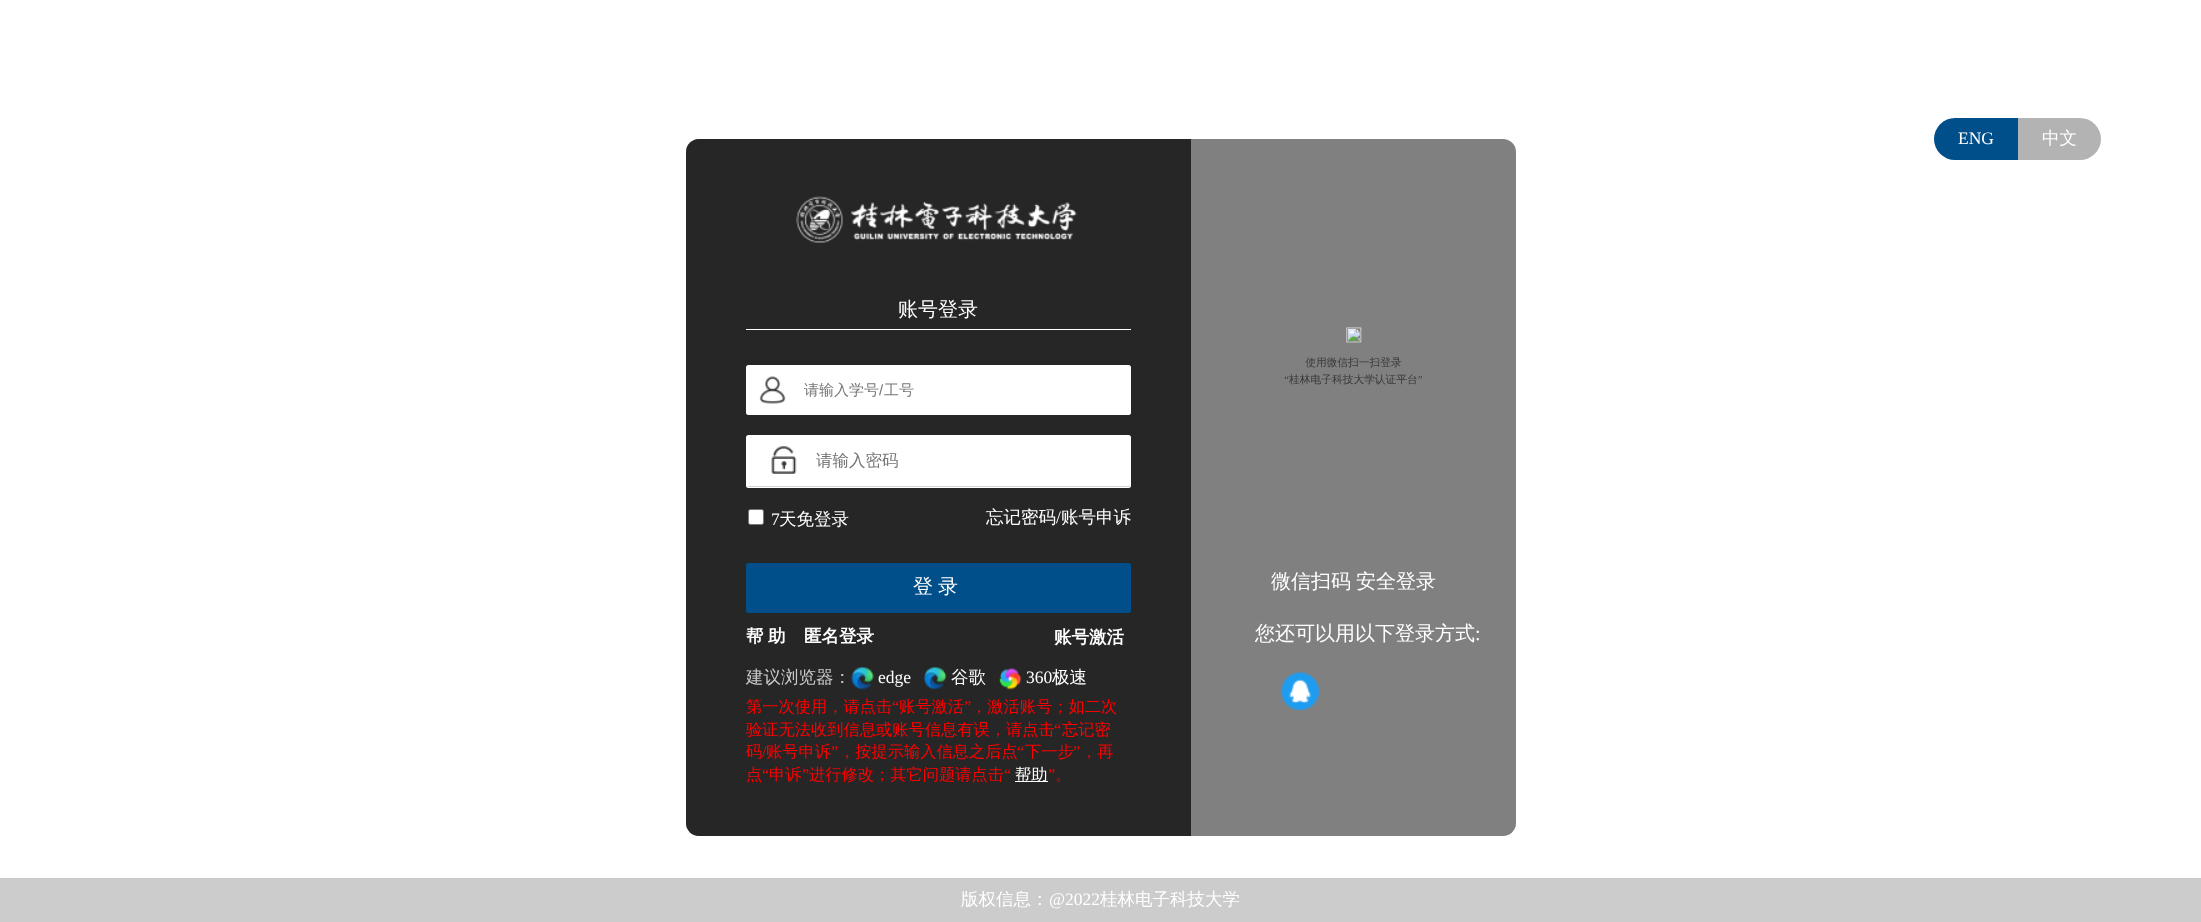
async function draw(canvas) {
  canvas.width = 2201
  canvas.height = 922
  const ctx = canvas.getContext('2d')
  ctx.miterLimit = 4
  ctx.fontKerning = 'normal'
  async function loadImage(src) {
    const img = new Image()
    img.src = src
    await img.decode()
    return img
  }

  ctx.fillStyle = '#fff'
  ctx.fillRect(0, 0, 2201, 922)
  ctx.fillStyle = '#004f8a'
  ctx.beginPath()
  ctx.roundRect(1934, 118, 84, 42, [21, 0, 0, 21])
  ctx.fill()
  ctx.font = '17.5px Liberation Serif'
  ctx.fillStyle = '#fff'
  ctx.fillText('ENG', 1958, 144)
  ctx.fillStyle = '#b3b3b3'
  ctx.beginPath()
  ctx.roundRect(2018, 118, 83, 42, [0, 21, 21, 0])
  ctx.fill()
  ctx.font = '500 17.5px WenQuanYi Zen Hei'
  ctx.fillStyle = '#fff'
  ctx.fillText('中文', 2042, 144)
  ctx.fillStyle = '#808080'
  ctx.beginPath()
  ctx.roundRect(686, 139, 830, 697, 13)
  ctx.fill()
  ctx.fillStyle = '#000000b3'
  ctx.beginPath()
  ctx.roundRect(686, 139, 505, 697, [13, 0, 0, 13])
  ctx.fill()
  ctx.drawImage(await loadImage('image0.png'), 796, 196, 281, 48)
  ctx.fillStyle = '#fff'
  ctx.fillRect(746, 329, 385, 1)
  ctx.font = '500 20px WenQuanYi Zen Hei'
  ctx.fillText('账号登录', 898, 316)
  ctx.beginPath()
  ctx.roundRect(746, 365, 385, 50, 2.5)
  ctx.fill()
  ctx.drawImage(await loadImage('image1.png'), 759, 376, 27, 28)
  ctx.font = '500 15px WenQuanYi Zen Hei'
  ctx.fillStyle = '#757575'
  ctx.fillText('请输入学号', 804, 395)
  ctx.font = '15px Liberation Sans'
  ctx.fillText('/', 879, 395)
  ctx.font = '500 15px WenQuanYi Zen Hei'
  ctx.fillText('工号', 884, 395)
  ctx.fillStyle = '#fff'
  ctx.beginPath()
  ctx.roundRect(746, 435, 385, 53, 2.5)
  ctx.fill()
  ctx.fillStyle = '#d5d5d5'
  ctx.fillRect(748, 486, 382, 1)
  ctx.drawImage(await loadImage('image2.png'), 771, 446, 26, 28)
  ctx.font = '500 16.5px WenQuanYi Zen Hei'
  ctx.fillStyle = '#757575'
  ctx.fillText('请输入密码', 816, 466)
  ctx.fillStyle = '#fff'
  ctx.beginPath()
  ctx.roundRect(748.5, 509.5, 15, 15, 2)
  ctx.fill()
  ctx.strokeStyle = '#767676'
  ctx.stroke()
  ctx.font = '17.5px Liberation Serif'
  ctx.fillText('7', 771, 525)
  ctx.font = '500 17.5px WenQuanYi Zen Hei'
  ctx.fillText('天免登录', 779, 525)
  ctx.fillText('忘记密码', 986, 523)
  ctx.font = '17.5px Liberation Serif'
  ctx.fillText('/', 1056, 523)
  ctx.font = '500 17.5px WenQuanYi Zen Hei'
  ctx.fillText('账号申诉', 1061, 523)
  ctx.fillStyle = '#004f8a'
  ctx.beginPath()
  ctx.roundRect(746, 563, 385, 50, 2.5)
  ctx.fill()
  ctx.letterSpacing = '5px'
  ctx.font = '500 20px WenQuanYi Zen Hei'
  ctx.fillStyle = '#fff'
  ctx.fillText('登录', 913, 593)
  ctx.letterSpacing = '0px'
  ctx.font = 'bold 17.5px WenQuanYi Zen Hei'
  ctx.fillText('帮', 746, 642)
  ctx.fillText('助', 768, 642)
  ctx.fillText('匿名登录', 804, 642)
  ctx.fillText('账号激活', 1054, 643)
  ctx.font = '500 17.5px WenQuanYi Zen Hei'
  ctx.fillStyle = '#c9c9c9'
  ctx.fillText('建议浏览器：', 746, 683)
  ctx.drawImage(await loadImage('image3.png'), 851, 667, 23, 23)
  ctx.font = '17.5px Liberation Serif'
  ctx.fillStyle = '#fff'
  ctx.fillText('edge', 878, 683)
  ctx.drawImage(await loadImage('image4.png'), 923, 667, 24, 23)
  ctx.font = '500 17.5px WenQuanYi Zen Hei'
  ctx.fillText('谷歌', 951, 683)
  ctx.drawImage(await loadImage('image5.png'), 998, 668, 24, 22)
  ctx.font = '17.5px Liberation Serif'
  ctx.fillText('360', 1026, 683)
  ctx.font = '500 17.5px WenQuanYi Zen Hei'
  ctx.fillText('极速', 1052, 683)
  ctx.font = '500 16.25px WenQuanYi Zen Hei'
  ctx.fillStyle = '#f00'
  ctx.fillText('第一次使用，请点击', 746, 712)
  ctx.font = '16.25px Liberation Serif'
  ctx.fillText('“', 892, 712)
  ctx.font = '500 16.25px WenQuanYi Zen Hei'
  ctx.fillText('账号激活', 899, 712)
  ctx.font = '16.25px Liberation Serif'
  ctx.fillText('”', 964, 712)
  ctx.font = '500 16.25px WenQuanYi Zen Hei'
  ctx.fillText('，激活账号；如二次', 971, 712)
  ctx.fillText('验证无法收到信息或账号信息有误，请点击', 746, 735)
  ctx.font = '16.25px Liberation Serif'
  ctx.fillText('“', 1054, 735)
  ctx.font = '500 16.25px WenQuanYi Zen Hei'
  ctx.fillText('忘记密', 1062, 735)
  ctx.fillText('码', 746, 757)
  ctx.font = '16.25px Liberation Serif'
  ctx.fillText('/', 762, 757)
  ctx.font = '500 16.25px WenQuanYi Zen Hei'
  ctx.fillText('账号申诉', 766, 757)
  ctx.font = '16.25px Liberation Serif'
  ctx.fillText('”', 831, 757)
  ctx.font = '500 16.25px WenQuanYi Zen Hei'
  ctx.fillText('，按提示输入信息之后点', 839, 757)
  ctx.font = '16.25px Liberation Serif'
  ctx.fillText('“', 1017, 757)
  ctx.font = '500 16.25px WenQuanYi Zen Hei'
  ctx.fillText('下一步', 1025, 757)
  ctx.font = '16.25px Liberation Serif'
  ctx.fillText('”', 1073, 757)
  ctx.font = '500 16.25px WenQuanYi Zen Hei'
  ctx.fillText('，再', 1081, 757)
  ctx.fillText('点', 746, 780)
  ctx.font = '16.25px Liberation Serif'
  ctx.fillText('“', 762, 780)
  ctx.font = '500 16.25px WenQuanYi Zen Hei'
  ctx.fillText('申诉', 769, 780)
  ctx.font = '16.25px Liberation Serif'
  ctx.fillText('”', 802, 780)
  ctx.font = '500 16.25px WenQuanYi Zen Hei'
  ctx.fillText('进行修改；其它问题请点击', 809, 780)
  ctx.font = '16.25px Liberation Serif'
  ctx.fillText('“', 1004, 780)
  ctx.fillStyle = '#fff'
  ctx.fillRect(1015, 781, 33, 1)
  ctx.font = '500 16.25px WenQuanYi Zen Hei'
  ctx.fillText('帮助', 1015, 780)
  ctx.font = '16.25px Liberation Serif'
  ctx.fillStyle = '#f00'
  ctx.fillText('”', 1048, 780)
  ctx.font = '500 16.25px WenQuanYi Zen Hei'
  ctx.fillText('。', 1055, 780)
  ctx.drawImage(await loadImage('image6.png'), 1284, 327, 138, 58)
  ctx.wordSpacing = '-1px'
  ctx.font = '500 20px WenQuanYi Zen Hei'
  ctx.fillStyle = '#fff'
  ctx.fillText('微信扫码 安全登录', 1271, 588)
  ctx.wordSpacing = '0px'
  ctx.fillText('您还可以用以下登录方式', 1255, 640)
  ctx.font = '20px Liberation Serif'
  ctx.fillText(':', 1475, 640)
  ctx.drawImage(await loadImage('image7.png'), 1280, 671, 39, 39)
  ctx.fillStyle = '#ccc'
  ctx.fillRect(0, 878, 2201, 44)
  ctx.font = '500 17.5px WenQuanYi Zen Hei'
  ctx.fillStyle = '#fff'
  ctx.fillText('版权信息：', 961, 905)
  ctx.font = '17.5px Liberation Serif'
  ctx.fillText('@2022', 1049, 905)
  ctx.font = '500 17.5px WenQuanYi Zen Hei'
  ctx.fillText('桂林电子科技大学', 1100, 905)
}

draw(document.querySelector('canvas'))
